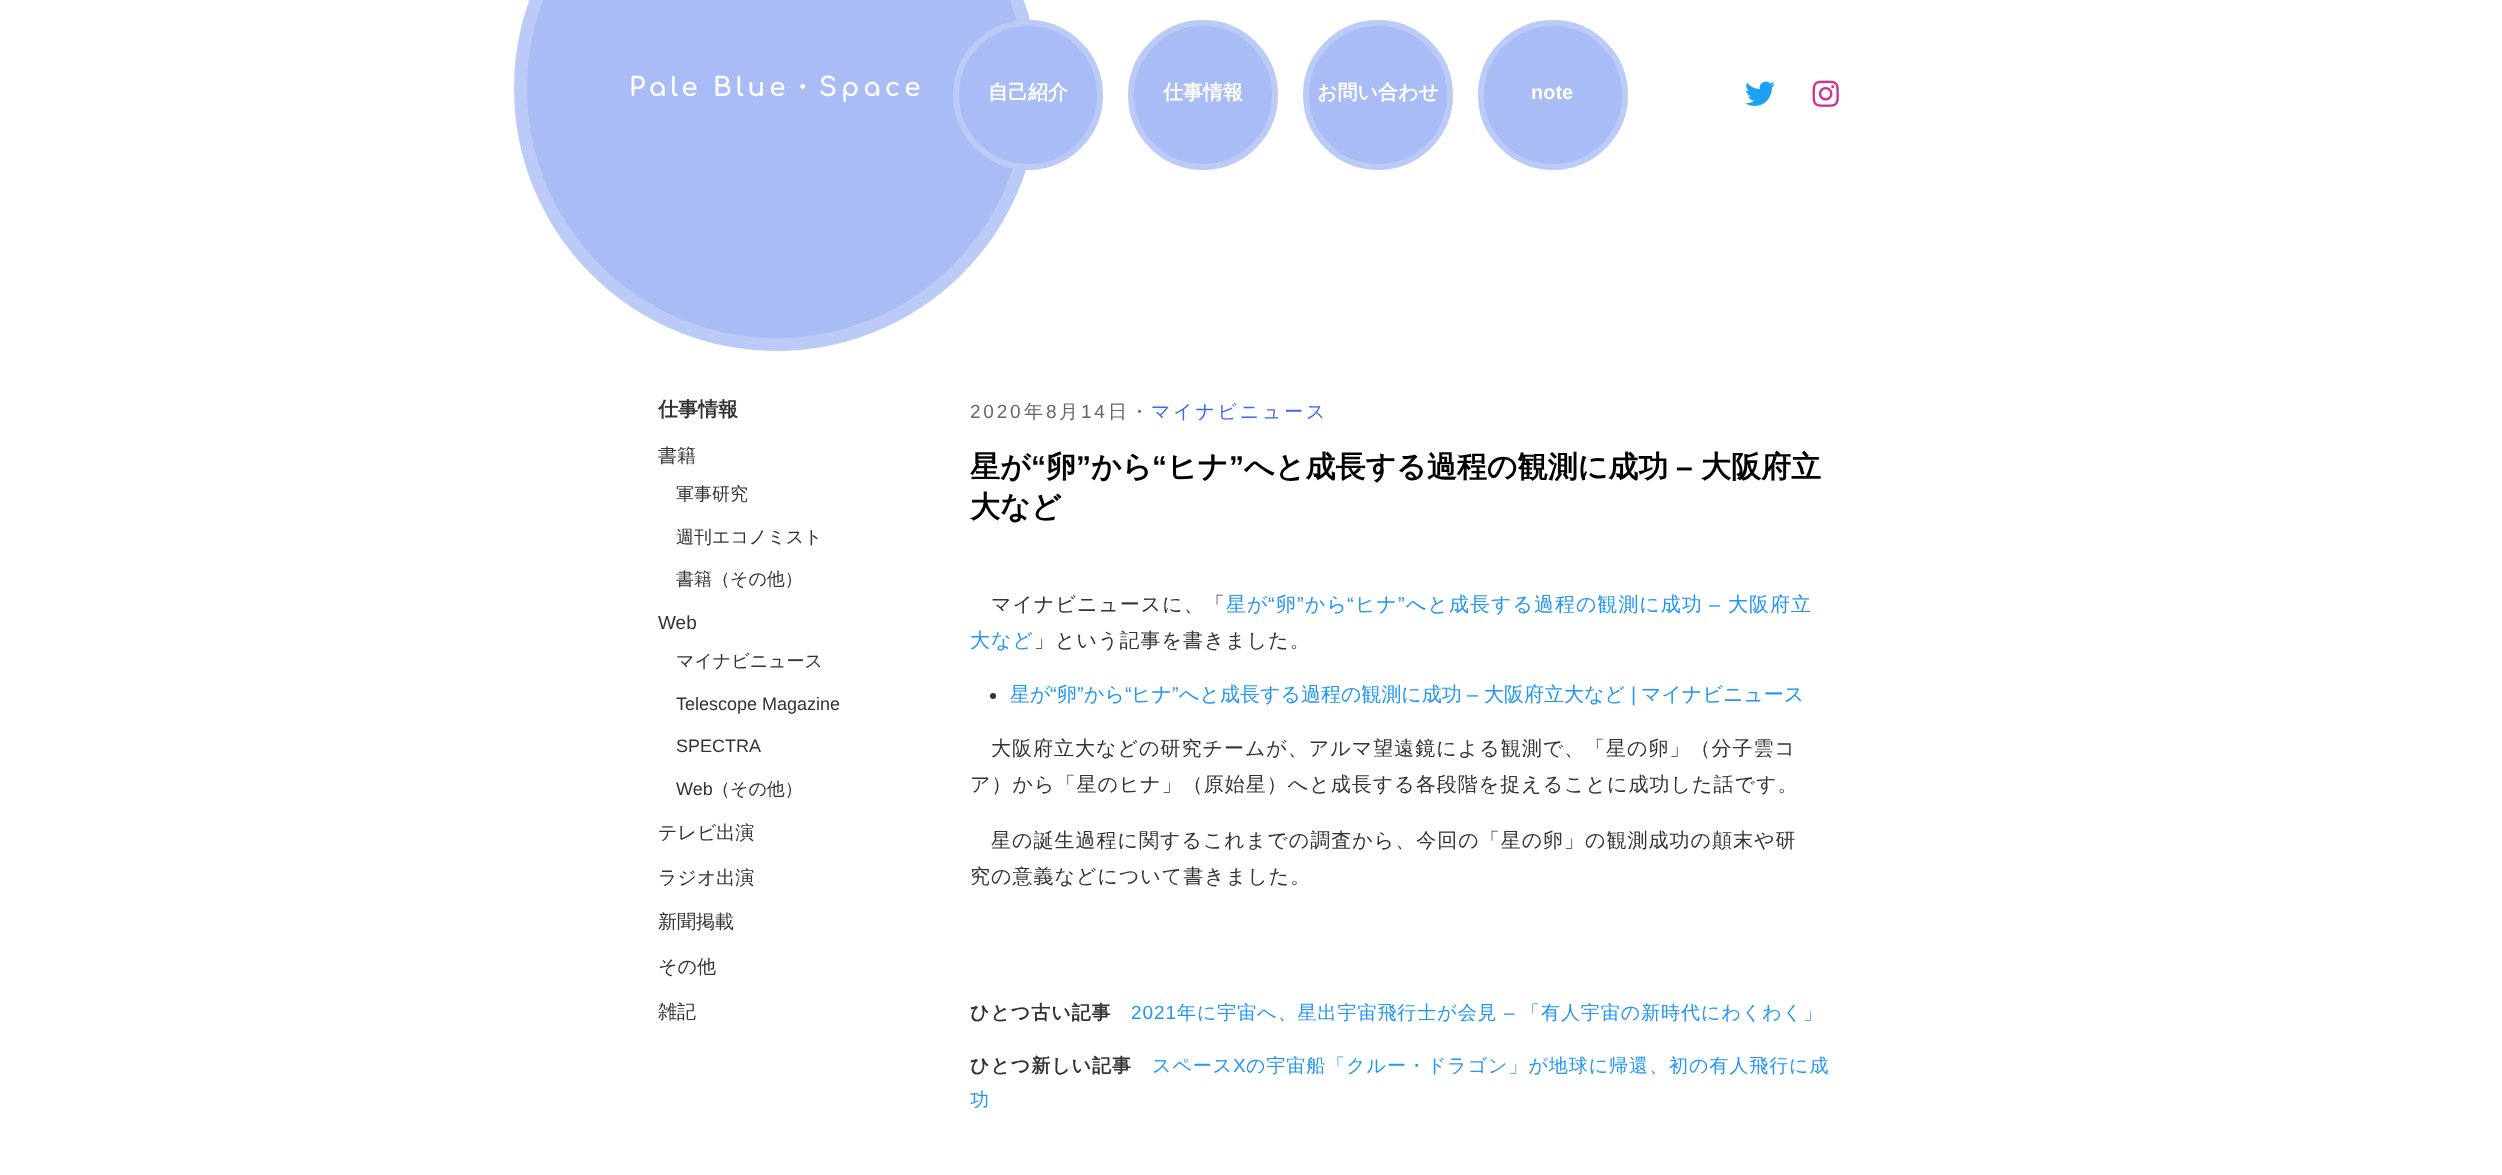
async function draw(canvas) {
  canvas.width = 2502
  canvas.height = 1175
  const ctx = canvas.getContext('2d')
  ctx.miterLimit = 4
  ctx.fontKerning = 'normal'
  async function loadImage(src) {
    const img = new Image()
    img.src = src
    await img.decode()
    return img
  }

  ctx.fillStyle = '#fff'
  ctx.fillRect(0, 0, 2502, 1175)
  ctx.fillStyle = '#a9bcf5'
  ctx.beginPath()
  ctx.arc(776.5, 88.5, 256, 0, 2 * Math.PI)
  ctx.fill()
  ctx.strokeStyle = '#bbcaf7'
  ctx.lineWidth = 13
  ctx.stroke()
  ctx.letterSpacing = '4px'
  ctx.font = 'bold 26px Comfortaa'
  ctx.fillStyle = '#fff'
  ctx.fillText('Pale Blue', 629, 96)
  ctx.font = 'bold 26px WenQuanYi Zen Hei'
  ctx.fillText('・', 789, 96)
  ctx.font = 'bold 26px Comfortaa'
  ctx.fillText('Space', 819, 96)
  ctx.fillStyle = '#a9bcf5'
  ctx.beginPath()
  ctx.arc(1028, 95, 72, 0, 2 * Math.PI)
  ctx.fill()
  ctx.lineWidth = 6
  ctx.stroke()
  ctx.letterSpacing = '0px'
  ctx.font = 'bold 20px WenQuanYi Zen Hei'
  ctx.fillStyle = '#fff'
  ctx.fillText('自己紹介', 988, 99)
  ctx.fillStyle = '#a9bcf5'
  ctx.beginPath()
  ctx.arc(1203, 95, 72, 0, 2 * Math.PI)
  ctx.fill()
  ctx.stroke()
  ctx.fillStyle = '#fff'
  ctx.fillText('仕事情報', 1163, 99)
  ctx.fillStyle = '#a9bcf5'
  ctx.beginPath()
  ctx.arc(1378, 95, 72, 0, 2 * Math.PI)
  ctx.fill()
  ctx.stroke()
  ctx.fillStyle = '#fff'
  ctx.fillText('お問い合わせ', 1317, 99)
  ctx.fillStyle = '#a9bcf5'
  ctx.beginPath()
  ctx.arc(1553, 95, 72, 0, 2 * Math.PI)
  ctx.fill()
  ctx.stroke()
  ctx.font = 'bold 20px Liberation Sans'
  ctx.fillStyle = '#fff'
  ctx.fillText('note', 1531, 99)
  ctx.drawImage(await loadImage('image0.png'), 1745, 81, 30, 25)
  ctx.drawImage(await loadImage('image1.png'), 1812, 80, 27, 27)
  ctx.font = 'bold 20px WenQuanYi Zen Hei'
  ctx.fillStyle = '#333'
  ctx.fillText('仕事情報', 658, 416)
  ctx.font = '500 19px WenQuanYi Zen Hei'
  ctx.fillText('書籍', 658, 462)
  ctx.font = '500 18px WenQuanYi Zen Hei'
  ctx.fillText('軍事研究', 676, 500)
  ctx.fillText('週刊エコノミスト', 676, 543)
  ctx.fillText('書籍（その他）', 676, 585)
  ctx.font = '19px Liberation Sans'
  ctx.fillText('Web', 658, 629)
  ctx.font = '500 18px WenQuanYi Zen Hei'
  ctx.fillText('マイナビニュース', 676, 667)
  ctx.font = '18px Liberation Sans'
  ctx.fillText('Telescope Magazine', 676, 710)
  ctx.fillText('SPECTRA', 676, 752)
  ctx.fillText('Web', 676, 795)
  ctx.font = '500 18px WenQuanYi Zen Hei'
  ctx.fillText('（その他）', 712, 795)
  ctx.font = '500 19px WenQuanYi Zen Hei'
  ctx.fillText('テレビ出演', 658, 839)
  ctx.fillText('ラジオ出演', 658, 884)
  ctx.fillText('新聞掲載', 658, 928)
  ctx.fillText('その他', 658, 973)
  ctx.fillText('雑記', 658, 1018)
  ctx.letterSpacing = '2.75px'
  ctx.font = '19px Liberation Sans'
  ctx.fillStyle = '#666'
  ctx.fillText('2020', 970, 418)
  ctx.font = '500 19px WenQuanYi Zen Hei'
  ctx.fillText('年', 1024, 418)
  ctx.font = '19px Liberation Sans'
  ctx.fillText('8', 1046, 418)
  ctx.font = '500 19px WenQuanYi Zen Hei'
  ctx.fillText('月', 1059, 418)
  ctx.font = '19px Liberation Sans'
  ctx.fillText('14', 1081, 418)
  ctx.font = '500 19px WenQuanYi Zen Hei'
  ctx.fillText('日・', 1108, 418)
  ctx.fillStyle = '#406ae9'
  ctx.fillText('マイナビニュース', 1151, 418)
  ctx.letterSpacing = '0px'
  ctx.font = 'bold 30px WenQuanYi Zen Hei'
  ctx.fillStyle = '#000'
  ctx.fillText('星が', 970, 477)
  ctx.font = 'bold 30px Liberation Sans'
  ctx.fillText('“', 1031, 477)
  ctx.font = 'bold 30px WenQuanYi Zen Hei'
  ctx.fillText('卵', 1046, 477)
  ctx.font = 'bold 30px Liberation Sans'
  ctx.fillText('”', 1076, 477)
  ctx.font = 'bold 30px WenQuanYi Zen Hei'
  ctx.fillText('から', 1091, 477)
  ctx.font = 'bold 30px Liberation Sans'
  ctx.fillText('“', 1152, 477)
  ctx.font = 'bold 30px WenQuanYi Zen Hei'
  ctx.fillText('ヒナ', 1167, 477)
  ctx.font = 'bold 30px Liberation Sans'
  ctx.fillText('”', 1229, 477)
  ctx.font = 'bold 30px WenQuanYi Zen Hei'
  ctx.fillText('へと成長する過程の観測に成功', 1244, 477)
  ctx.fillText('大阪府立', 1701, 477)
  ctx.font = 'bold 30px Liberation Sans'
  ctx.fillText('–', 1676, 477)
  ctx.font = 'bold 30px WenQuanYi Zen Hei'
  ctx.fillText('大など', 970, 517)
  ctx.letterSpacing = '1px'
  ctx.font = '500 20px WenQuanYi Zen Hei'
  ctx.fillStyle = '#333'
  ctx.fillText('マイナビニュースに、「', 991, 611)
  ctx.fillStyle = '#2196f3'
  ctx.fillText('星が', 1226, 611)
  ctx.font = '20px Liberation Sans'
  ctx.fillText('“', 1268, 611)
  ctx.font = '500 20px WenQuanYi Zen Hei'
  ctx.fillText('卵', 1276, 611)
  ctx.font = '20px Liberation Sans'
  ctx.fillText('”', 1297, 611)
  ctx.font = '500 20px WenQuanYi Zen Hei'
  ctx.fillText('から', 1305, 611)
  ctx.font = '20px Liberation Sans'
  ctx.fillText('“', 1347, 611)
  ctx.font = '500 20px WenQuanYi Zen Hei'
  ctx.fillText('ヒナ', 1355, 611)
  ctx.font = '20px Liberation Sans'
  ctx.fillText('”', 1398, 611)
  ctx.font = '500 20px WenQuanYi Zen Hei'
  ctx.fillText('へと成長する過程の観測に成功', 1406, 611)
  ctx.fillText('大阪府立', 1728, 611)
  ctx.font = '20px Liberation Sans'
  ctx.fillText('–', 1709, 611)
  ctx.font = '500 20px WenQuanYi Zen Hei'
  ctx.fillText('大など', 970, 647)
  ctx.fillStyle = '#333'
  ctx.fillText('」という記事を書きました。', 1034, 647)
  ctx.letterSpacing = '0px'
  ctx.fillStyle = '#2196f3'
  ctx.fillText('星が', 1010, 701)
  ctx.font = '20px Liberation Sans'
  ctx.fillText('“', 1050, 701)
  ctx.font = '500 20px WenQuanYi Zen Hei'
  ctx.fillText('卵', 1057, 701)
  ctx.font = '20px Liberation Sans'
  ctx.fillText('”', 1077, 701)
  ctx.font = '500 20px WenQuanYi Zen Hei'
  ctx.fillText('から', 1084, 701)
  ctx.font = '20px Liberation Sans'
  ctx.fillText('“', 1125, 701)
  ctx.font = '500 20px WenQuanYi Zen Hei'
  ctx.fillText('ヒナ', 1131, 701)
  ctx.font = '20px Liberation Sans'
  ctx.fillText('”', 1172, 701)
  ctx.font = '500 20px WenQuanYi Zen Hei'
  ctx.fillText('へと成長する過程の観測に成功', 1179, 701)
  ctx.fillText('大阪府立大など', 1484, 701)
  ctx.font = '20px Liberation Sans'
  ctx.fillText('|', 1631, 701)
  ctx.font = '500 20px WenQuanYi Zen Hei'
  ctx.fillText('マイナビニュース', 1641, 701)
  ctx.fillStyle = '#333'
  ctx.beginPath()
  ctx.arc(993, 696, 3, 0, 2 * Math.PI)
  ctx.fill()
  ctx.font = '20px Liberation Sans'
  ctx.fillStyle = '#2196f3'
  ctx.fillText('–', 1467, 701)
  ctx.letterSpacing = '1px'
  ctx.font = '500 20px WenQuanYi Zen Hei'
  ctx.fillStyle = '#333'
  ctx.fillText('大阪府立大などの研究チームが、アルマ望遠鏡による観測で、「星の卵」（分子雲コ', 991, 755)
  ctx.fillText('ア）から「星のヒナ」（原始星）へと成長する各段階を捉えることに成功した話です。', 970, 791)
  ctx.fillText('星の誕生過程に関するこれまでの調査から、今回の「星の卵」の観測成功の顛末や研', 991, 847)
  ctx.fillText('究の意義などについて書きました。', 970, 883)
  ctx.letterSpacing = '0.95px'
  ctx.font = 'bold 19px WenQuanYi Zen Hei'
  ctx.fillText('ひとつ古い記事', 970, 1019)
  ctx.font = '19px Liberation Sans'
  ctx.fillStyle = '#2196f3'
  ctx.fillText('2021', 1131, 1019)
  ctx.font = '500 19px WenQuanYi Zen Hei'
  ctx.fillText('年に宇宙へ、星出宇宙飛行士が会見', 1177, 1019)
  ctx.font = '19px Liberation Sans'
  ctx.fillText('–', 1504, 1019)
  ctx.font = '500 19px WenQuanYi Zen Hei'
  ctx.fillText('「有人宇宙の新時代にわくわく」', 1521, 1019)
  ctx.font = 'bold 19px WenQuanYi Zen Hei'
  ctx.fillStyle = '#333'
  ctx.fillText('ひとつ新しい記事', 970, 1072)
  ctx.font = '500 19px WenQuanYi Zen Hei'
  ctx.fillStyle = '#2196f3'
  ctx.fillText('スペース', 1152, 1072)
  ctx.font = '19px Liberation Sans'
  ctx.fillText('X', 1233, 1072)
  ctx.font = '500 19px WenQuanYi Zen Hei'
  ctx.fillText('の宇宙船「クルー・ドラゴン」が地球に帰還、初の有人飛行に成', 1246, 1072)
  ctx.fillText('功', 970, 1106)
}

draw(document.querySelector('canvas'))
